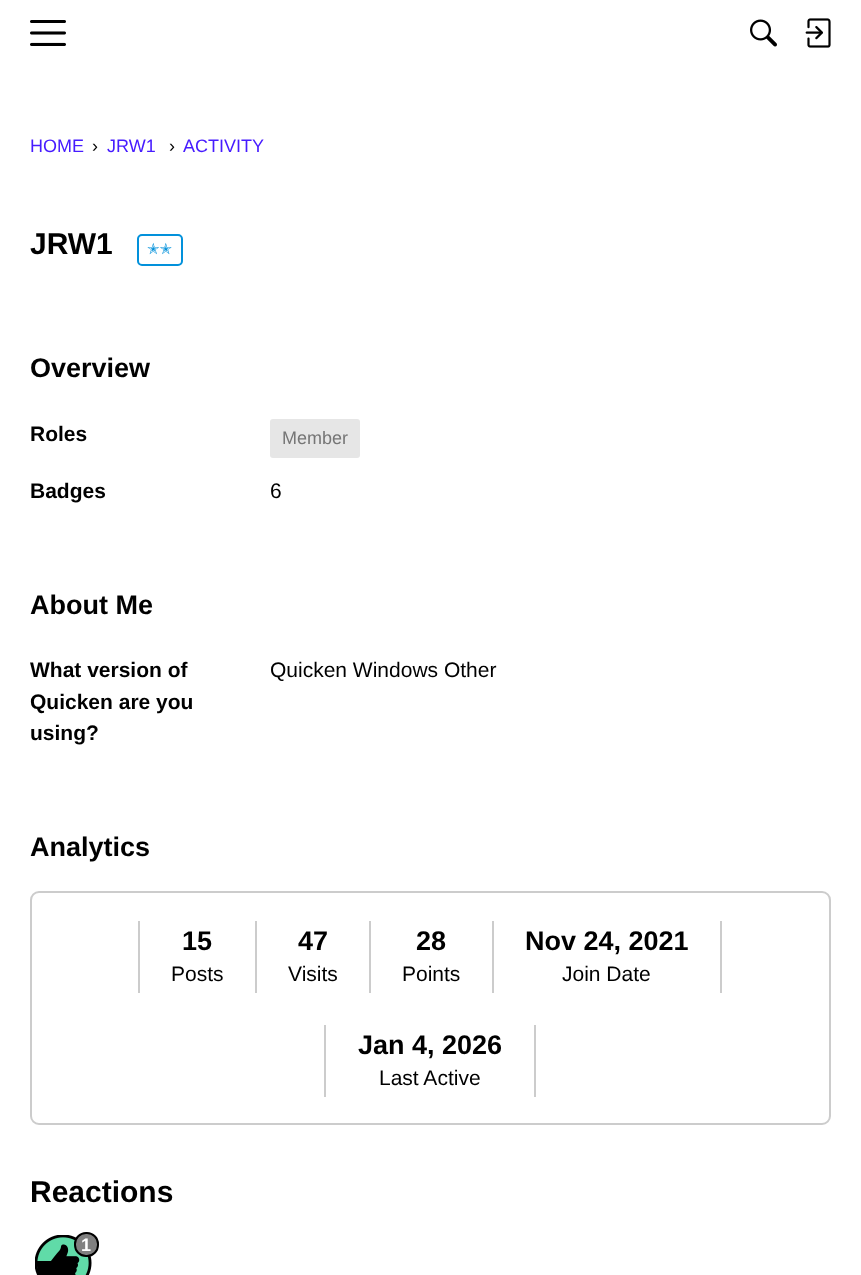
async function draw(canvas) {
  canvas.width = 861
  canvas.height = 1275
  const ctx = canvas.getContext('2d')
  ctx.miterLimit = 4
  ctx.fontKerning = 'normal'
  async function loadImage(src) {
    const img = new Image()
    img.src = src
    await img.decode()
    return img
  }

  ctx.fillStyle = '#fff'
  ctx.fillRect(0, 0, 861, 1275)
  ctx.drawImage(await loadImage('image0.png'), 30, 20, 36, 26)
  ctx.drawImage(await loadImage('image1.png'), 750, 19, 27, 28)
  ctx.drawImage(await loadImage('image2.png'), 805, 18, 26, 30)
  ctx.font = '18px Liberation Sans'
  ctx.fillStyle = '#471cff'
  ctx.fillText('HOME', 30, 152)
  ctx.fillStyle = '#000'
  ctx.fillText('›', 92, 152)
  ctx.fillStyle = '#471cff'
  ctx.fillText('JRW1', 107, 152)
  ctx.fillStyle = '#000'
  ctx.fillText('›', 169, 152)
  ctx.fillStyle = '#471cff'
  ctx.fillText('ACTIVITY', 183, 152)
  ctx.font = 'bold 30px Liberation Sans'
  ctx.fillStyle = '#000'
  ctx.fillText('JRW1', 30, 254)
  ctx.beginPath()
  ctx.roundRect(138, 235, 44, 30, 4)
  ctx.strokeStyle = '#0291db'
  ctx.lineWidth = 2
  ctx.stroke()
  ctx.font = '15px DejaVu Sans'
  ctx.fillStyle = '#0291db'
  ctx.fillText('✭✭', 147, 254)
  ctx.font = 'bold 27px Liberation Sans'
  ctx.fillStyle = '#000'
  ctx.fillText('Overview', 30, 377)
  ctx.font = 'bold 21px Liberation Sans'
  ctx.fillText('Roles', 30, 441)
  ctx.fillStyle = '#e6e6e6'
  ctx.beginPath()
  ctx.roundRect(270, 419, 90, 39, 3)
  ctx.fill()
  ctx.font = '18px Liberation Sans'
  ctx.fillStyle = '#767676'
  ctx.fillText('Member', 282, 444)
  ctx.font = 'bold 21px Liberation Sans'
  ctx.fillStyle = '#000'
  ctx.fillText('Badges', 30, 498)
  ctx.font = '21px Liberation Sans'
  ctx.fillText('6', 270, 498)
  ctx.font = 'bold 27px Liberation Sans'
  ctx.fillText('About Me', 30, 614)
  ctx.font = 'bold 21px Liberation Sans'
  ctx.fillText('What version of', 30, 677)
  ctx.fillText('Quicken are you', 30, 709)
  ctx.fillText('using?', 30, 740)
  ctx.font = '21px Liberation Sans'
  ctx.fillText('Quicken Windows Other', 270, 677)
  ctx.font = 'bold 27px Liberation Sans'
  ctx.fillText('Analytics', 30, 856)
  ctx.beginPath()
  ctx.roundRect(31, 892, 799, 232, 8)
  ctx.strokeStyle = '#ccc'
  ctx.stroke()
  ctx.fillStyle = '#ccc'
  ctx.fillRect(255, 921, 2, 72)
  ctx.fillRect(138, 921, 2, 72)
  ctx.fillStyle = '#000'
  ctx.fillText('15', 182, 950)
  ctx.font = '21px Liberation Sans'
  ctx.fillText('Posts', 171, 981)
  ctx.fillStyle = '#ccc'
  ctx.fillRect(369, 921, 2, 72)
  ctx.font = 'bold 27px Liberation Sans'
  ctx.fillStyle = '#000'
  ctx.fillText('47', 298, 950)
  ctx.font = '21px Liberation Sans'
  ctx.fillText('Visits', 288, 981)
  ctx.fillStyle = '#ccc'
  ctx.fillRect(492, 921, 2, 72)
  ctx.font = 'bold 27px Liberation Sans'
  ctx.fillStyle = '#000'
  ctx.fillText('28', 416, 950)
  ctx.font = '21px Liberation Sans'
  ctx.fillText('Points', 402, 981)
  ctx.fillStyle = '#ccc'
  ctx.fillRect(720, 921, 2, 72)
  ctx.font = 'bold 27px Liberation Sans'
  ctx.fillStyle = '#000'
  ctx.fillText('Nov 24, 2021', 525, 950)
  ctx.font = '21px Liberation Sans'
  ctx.fillText('Join Date', 562, 981)
  ctx.fillStyle = '#ccc'
  ctx.fillRect(534, 1025, 2, 72)
  ctx.fillRect(324, 1025, 2, 72)
  ctx.font = 'bold 27px Liberation Sans'
  ctx.fillStyle = '#000'
  ctx.fillText('Jan 4, 2026', 358, 1054)
  ctx.font = '21px Liberation Sans'
  ctx.fillText('Last Active', 379, 1085)
  ctx.font = 'bold 30px Liberation Sans'
  ctx.fillText('Reactions', 30, 1202)
  ctx.drawImage(await loadImage('image3.png'), 35, 1235, 57, 40)
  ctx.fillStyle = '#808080'
  ctx.beginPath()
  ctx.roundRect(75, 1233, 23, 23, 11)
  ctx.fill()
  ctx.strokeStyle = '#000'
  ctx.stroke()
  ctx.letterSpacing = '-2px'
  ctx.font = 'bold 18px Liberation Sans'
  ctx.fillStyle = '#fff'
  ctx.fillText('1', 81, 1251)
}

draw(document.querySelector('canvas'))
